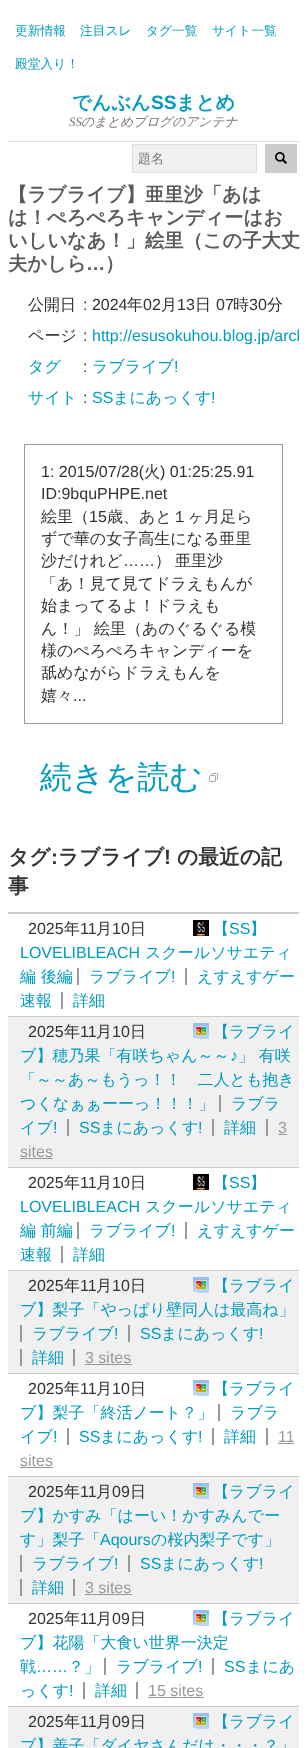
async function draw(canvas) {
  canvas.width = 307
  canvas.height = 1748
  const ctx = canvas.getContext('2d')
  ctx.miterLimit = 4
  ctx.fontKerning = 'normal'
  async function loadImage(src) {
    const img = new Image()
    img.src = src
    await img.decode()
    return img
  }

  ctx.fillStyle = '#fff'
  ctx.fillRect(0, 0, 307, 1748)
  ctx.font = '500 12.75px WenQuanYi Zen Hei'
  ctx.fillStyle = '#009bc2'
  ctx.fillText('更新情報', 15, 35)
  ctx.fillText('注目スレ', 80, 35)
  ctx.fillText('タグ一覧', 146, 35)
  ctx.fillText('サイト一覧', 212, 35)
  ctx.fillText('殿堂入り！', 15, 68)
  ctx.font = 'bold 19.25px WenQuanYi Zen Hei'
  ctx.fillText('でんぶん', 72, 109)
  ctx.font = 'bold 19.25px Liberation Sans'
  ctx.fillText('SS', 151, 109)
  ctx.font = 'bold 19.25px WenQuanYi Zen Hei'
  ctx.fillText('まとめ', 176, 109)
  ctx.font = 'italic 12.75px Liberation Serif'
  ctx.fillStyle = '#777'
  ctx.fillText('SS', 69, 126)
  ctx.font = 'italic 500 12.75px WenQuanYi Zen Hei'
  ctx.fillText('のまとめブログのアンテナ', 81, 126)
  ctx.fillStyle = '#ddd'
  ctx.fillRect(8, 141, 291, 1)
  ctx.fillStyle = '#f0f0f0'
  ctx.beginPath()
  ctx.rect(132.5, 144.5, 124, 28)
  ctx.fill()
  ctx.strokeStyle = '#ddd'
  ctx.stroke()
  ctx.font = '500 13px WenQuanYi Zen Hei'
  ctx.fillStyle = '#777'
  ctx.fillText('題名', 138, 163)
  ctx.fillStyle = '#ccc'
  ctx.fillRect(265, 144, 32, 29)
  ctx.drawImage(await loadImage('image0.png'), 275, 152, 12, 12)
  ctx.font = 'bold 19.25px WenQuanYi Zen Hei'
  ctx.fillStyle = '#595959'
  ctx.fillText('【ラブライブ】亜里沙「あは', 8, 201)
  ctx.fillText('は！ぺろぺろキャンディーはお', 8, 224)
  ctx.fillText('いしいなあ！」絵里（この子大丈', 8, 247)
  ctx.fillText('夫かしら', 8, 270)
  ctx.font = 'bold 19.25px Liberation Sans'
  ctx.fillText('…', 86, 270)
  ctx.font = 'bold 19.25px WenQuanYi Zen Hei'
  ctx.fillText('）', 105, 270)
  ctx.font = '500 16px WenQuanYi Zen Hei'
  ctx.fillStyle = '#333'
  ctx.fillText('公開日', 28, 310)
  ctx.font = '16px Liberation Sans'
  ctx.fillText(': 2024', 83, 310)
  ctx.font = '500 16px WenQuanYi Zen Hei'
  ctx.fillText('年', 127, 310)
  ctx.font = '16px Liberation Sans'
  ctx.fillText('02', 143, 310)
  ctx.font = '500 16px WenQuanYi Zen Hei'
  ctx.fillText('月', 161, 310)
  ctx.font = '16px Liberation Sans'
  ctx.fillText('13', 177, 310)
  ctx.font = '500 16px WenQuanYi Zen Hei'
  ctx.fillText('日', 195, 310)
  ctx.font = '16px Liberation Sans'
  ctx.fillText('07', 216, 310)
  ctx.font = '500 16px WenQuanYi Zen Hei'
  ctx.fillText('時', 233, 310)
  ctx.font = '16px Liberation Sans'
  ctx.fillText('30', 249, 310)
  ctx.font = '500 16px WenQuanYi Zen Hei'
  ctx.fillText('分', 267, 310)
  ctx.fillText('ページ', 28, 341)
  ctx.font = '16px Liberation Sans'
  ctx.fillText(':', 83, 341)
  ctx.save()
  ctx.beginPath()
  ctx.rect(8, 183, 291, 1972)
  ctx.clip()
  ctx.fillStyle = '#009bc2'
  ctx.fillText('http://esusokuhou.blog.jp/arch', 92, 341)
  ctx.restore()
  ctx.font = '500 16px WenQuanYi Zen Hei'
  ctx.fillStyle = '#009bc2'
  ctx.fillText('タグ', 28, 372)
  ctx.font = '16px Liberation Sans'
  ctx.fillStyle = '#333'
  ctx.fillText(':', 83, 372)
  ctx.font = '500 16px WenQuanYi Zen Hei'
  ctx.fillStyle = '#009bc2'
  ctx.fillText('ラブライブ', 92, 372)
  ctx.font = '16px Liberation Sans'
  ctx.fillText('!', 174, 372)
  ctx.font = '500 16px WenQuanYi Zen Hei'
  ctx.fillText('サイト', 28, 403)
  ctx.font = '16px Liberation Sans'
  ctx.fillStyle = '#333'
  ctx.fillText(':', 83, 403)
  ctx.fillStyle = '#009bc2'
  ctx.fillText('SS', 92, 403)
  ctx.font = '500 16px WenQuanYi Zen Hei'
  ctx.fillText('まにあっくす', 113, 403)
  ctx.font = '16px Liberation Sans'
  ctx.fillText('!', 211, 403)
  ctx.strokeStyle = '#999'
  ctx.strokeRect(24.5, 444.5, 258, 279)
  ctx.fillStyle = '#333'
  ctx.fillText('1: 2015/07/28(', 41, 477)
  ctx.font = '500 16px WenQuanYi Zen Hei'
  ctx.fillText('火', 144, 477)
  ctx.font = '16px Liberation Sans'
  ctx.fillText(') 01:25:25.91', 160, 477)
  ctx.fillText('ID:9bquPHPE.net', 41, 499)
  ctx.font = '500 16px WenQuanYi Zen Hei'
  ctx.fillText('絵里（', 41, 522)
  ctx.font = '16px Liberation Sans'
  ctx.fillText('15', 89, 522)
  ctx.font = '500 16px WenQuanYi Zen Hei'
  ctx.fillText('歳、あと１ヶ月足ら', 107, 522)
  ctx.fillText('ずで華の女子高生になる亜里', 41, 544)
  ctx.fillText('沙だけれど', 41, 566)
  ctx.font = '16px Liberation Sans'
  ctx.fillText('……', 123, 566)
  ctx.font = '500 16px WenQuanYi Zen Hei'
  ctx.fillText('）', 155, 566)
  ctx.fillText('亜里沙', 175, 566)
  ctx.fillText('「あ！見て見てドラえもんが', 41, 589)
  ctx.fillText('始まってるよ！ドラえも', 41, 611)
  ctx.fillText('ん！」', 41, 634)
  ctx.fillText('絵里（あのぐるぐる模', 94, 634)
  ctx.fillText('様のぺろぺろキャンディーを', 41, 656)
  ctx.fillText('舐めながらドラえもんを', 41, 678)
  ctx.fillText('嬉々', 41, 701)
  ctx.font = '16px Liberation Sans'
  ctx.fillText('...', 73, 701)
  ctx.font = '500 32px WenQuanYi Zen Hei'
  ctx.fillStyle = '#009bc2'
  ctx.fillText('続きを読む', 40, 788)
  ctx.drawImage(await loadImage('image1.png'), 209, 773, 9, 9)
  ctx.font = 'bold 20.75px WenQuanYi Zen Hei'
  ctx.fillStyle = '#333'
  ctx.fillText('タグ', 8, 864)
  ctx.font = 'bold 20.75px Liberation Sans'
  ctx.fillText(':', 51, 864)
  ctx.font = 'bold 20.75px WenQuanYi Zen Hei'
  ctx.fillText('ラブライブ', 58, 864)
  ctx.font = 'bold 20.75px Liberation Sans'
  ctx.fillText('!', 164, 864)
  ctx.font = 'bold 20.75px WenQuanYi Zen Hei'
  ctx.fillText('の最近の記', 177, 864)
  ctx.fillText('事', 8, 893)
  ctx.fillStyle = '#ccc'
  ctx.fillRect(8, 912, 291, 2)
  ctx.fillRect(8, 1016, 291, 1)
  ctx.drawImage(await loadImage('image2.png'), 193, 920, 16, 16)
  ctx.font = '500 16px WenQuanYi Zen Hei'
  ctx.fillStyle = '#009bc2'
  ctx.fillText('【', 213, 934)
  ctx.font = '16px Liberation Sans'
  ctx.fillText('SS', 229, 934)
  ctx.font = '500 16px WenQuanYi Zen Hei'
  ctx.fillText('】', 250, 934)
  ctx.font = '16px Liberation Sans'
  ctx.fillText('LOVELIBLEACH', 20, 958)
  ctx.font = '500 16px WenQuanYi Zen Hei'
  ctx.fillText('スクールソサエティ', 145, 958)
  ctx.fillText('編 後編', 20, 982)
  ctx.fillText('ラブライブ', 89, 982)
  ctx.fillStyle = '#999'
  ctx.fillRect(77, 968, 2, 17)
  ctx.font = '16px Liberation Sans'
  ctx.fillStyle = '#009bc2'
  ctx.fillText('!', 171, 982)
  ctx.font = '500 16px WenQuanYi Zen Hei'
  ctx.fillText('えすえすゲー', 197, 982)
  ctx.fillStyle = '#999'
  ctx.fillRect(185, 968, 2, 17)
  ctx.fillStyle = '#009bc2'
  ctx.fillText('速報', 20, 1006)
  ctx.fillText('詳細', 73, 1006)
  ctx.fillStyle = '#999'
  ctx.fillRect(61, 992, 2, 17)
  ctx.font = '16px Liberation Sans'
  ctx.fillStyle = '#333'
  ctx.fillText('2025', 28, 934)
  ctx.font = '500 16px WenQuanYi Zen Hei'
  ctx.fillText('年', 64, 934)
  ctx.font = '16px Liberation Sans'
  ctx.fillText('11', 80, 934)
  ctx.font = '500 16px WenQuanYi Zen Hei'
  ctx.fillText('月', 96, 934)
  ctx.font = '16px Liberation Sans'
  ctx.fillText('10', 112, 934)
  ctx.font = '500 16px WenQuanYi Zen Hei'
  ctx.fillText('日', 130, 934)
  ctx.fillStyle = '#f0f0f0'
  ctx.fillRect(8, 1017, 291, 150)
  ctx.fillStyle = '#ccc'
  ctx.fillRect(8, 1167, 291, 1)
  ctx.drawImage(await loadImage('image3.png'), 193, 1023, 16, 16)
  ctx.fillStyle = '#009bc2'
  ctx.fillText('【ラブライ', 213, 1037)
  ctx.fillText('ブ】穂乃果「有咲ちゃん～～', 20, 1061)
  ctx.font = '16px Liberation Sans'
  ctx.fillText('♪', 230, 1061)
  ctx.font = '500 16px WenQuanYi Zen Hei'
  ctx.fillText('」 有咲', 238, 1061)
  ctx.fillText('「～～あ～もうっ！！　二人とも抱き', 20, 1085)
  ctx.fillText('つくなぁぁーーっ！！！」', 20, 1109)
  ctx.fillText('ラブラ', 231, 1109)
  ctx.fillStyle = '#999'
  ctx.fillRect(219, 1095, 2, 17)
  ctx.fillStyle = '#009bc2'
  ctx.fillText('イブ', 20, 1133)
  ctx.font = '16px Liberation Sans'
  ctx.fillText('!', 53, 1133)
  ctx.fillText('SS', 79, 1133)
  ctx.fillStyle = '#999'
  ctx.fillRect(67, 1119, 2, 17)
  ctx.font = '500 16px WenQuanYi Zen Hei'
  ctx.fillStyle = '#009bc2'
  ctx.fillText('まにあっくす', 100, 1133)
  ctx.font = '16px Liberation Sans'
  ctx.fillText('!', 198, 1133)
  ctx.font = '500 16px WenQuanYi Zen Hei'
  ctx.fillText('詳細', 224, 1133)
  ctx.fillStyle = '#999'
  ctx.fillRect(212, 1119, 2, 17)
  ctx.font = '16px Liberation Sans'
  ctx.fillText('3', 278, 1133)
  ctx.fillRect(266, 1119, 2, 17)
  ctx.fillRect(278, 1134, 9, 1)
  ctx.fillText('sites', 20, 1157)
  ctx.fillRect(20, 1158, 33, 1)
  ctx.fillStyle = '#333'
  ctx.fillText('2025', 28, 1037)
  ctx.font = '500 16px WenQuanYi Zen Hei'
  ctx.fillText('年', 64, 1037)
  ctx.font = '16px Liberation Sans'
  ctx.fillText('11', 80, 1037)
  ctx.font = '500 16px WenQuanYi Zen Hei'
  ctx.fillText('月', 96, 1037)
  ctx.font = '16px Liberation Sans'
  ctx.fillText('10', 112, 1037)
  ctx.font = '500 16px WenQuanYi Zen Hei'
  ctx.fillText('日', 130, 1037)
  ctx.fillStyle = '#ccc'
  ctx.fillRect(8, 1270, 291, 1)
  ctx.drawImage(await loadImage('image2.png'), 193, 1174, 16, 16)
  ctx.fillStyle = '#009bc2'
  ctx.fillText('【', 213, 1188)
  ctx.font = '16px Liberation Sans'
  ctx.fillText('SS', 229, 1188)
  ctx.font = '500 16px WenQuanYi Zen Hei'
  ctx.fillText('】', 250, 1188)
  ctx.font = '16px Liberation Sans'
  ctx.fillText('LOVELIBLEACH', 20, 1212)
  ctx.font = '500 16px WenQuanYi Zen Hei'
  ctx.fillText('スクールソサエティ', 145, 1212)
  ctx.fillText('編 前編', 20, 1236)
  ctx.fillText('ラブライブ', 89, 1236)
  ctx.fillStyle = '#999'
  ctx.fillRect(77, 1222, 2, 17)
  ctx.font = '16px Liberation Sans'
  ctx.fillStyle = '#009bc2'
  ctx.fillText('!', 171, 1236)
  ctx.font = '500 16px WenQuanYi Zen Hei'
  ctx.fillText('えすえすゲー', 197, 1236)
  ctx.fillStyle = '#999'
  ctx.fillRect(185, 1222, 2, 17)
  ctx.fillStyle = '#009bc2'
  ctx.fillText('速報', 20, 1260)
  ctx.fillText('詳細', 73, 1260)
  ctx.fillStyle = '#999'
  ctx.fillRect(61, 1246, 2, 17)
  ctx.font = '16px Liberation Sans'
  ctx.fillStyle = '#333'
  ctx.fillText('2025', 28, 1188)
  ctx.font = '500 16px WenQuanYi Zen Hei'
  ctx.fillText('年', 64, 1188)
  ctx.font = '16px Liberation Sans'
  ctx.fillText('11', 80, 1188)
  ctx.font = '500 16px WenQuanYi Zen Hei'
  ctx.fillText('月', 96, 1188)
  ctx.font = '16px Liberation Sans'
  ctx.fillText('10', 112, 1188)
  ctx.font = '500 16px WenQuanYi Zen Hei'
  ctx.fillText('日', 130, 1188)
  ctx.fillStyle = '#f0f0f0'
  ctx.fillRect(8, 1271, 291, 102)
  ctx.fillStyle = '#ccc'
  ctx.fillRect(8, 1373, 291, 1)
  ctx.drawImage(await loadImage('image3.png'), 193, 1277, 16, 16)
  ctx.fillStyle = '#009bc2'
  ctx.fillText('【ラブライ', 213, 1291)
  ctx.fillText('ブ】梨子「やっぱり壁同人は最高ね」', 20, 1315)
  ctx.fillText('ラブライブ', 32, 1339)
  ctx.fillStyle = '#999'
  ctx.fillRect(20, 1325, 2, 17)
  ctx.font = '16px Liberation Sans'
  ctx.fillStyle = '#009bc2'
  ctx.fillText('!', 114, 1339)
  ctx.fillText('SS', 140, 1339)
  ctx.fillStyle = '#999'
  ctx.fillRect(128, 1325, 2, 17)
  ctx.font = '500 16px WenQuanYi Zen Hei'
  ctx.fillStyle = '#009bc2'
  ctx.fillText('まにあっくす', 161, 1339)
  ctx.font = '16px Liberation Sans'
  ctx.fillText('!', 259, 1339)
  ctx.font = '500 16px WenQuanYi Zen Hei'
  ctx.fillText('詳細', 32, 1363)
  ctx.fillStyle = '#999'
  ctx.fillRect(20, 1349, 2, 17)
  ctx.font = '16px Liberation Sans'
  ctx.fillText('3 sites', 85, 1363)
  ctx.fillRect(73, 1349, 2, 17)
  ctx.fillRect(85, 1364, 47, 1)
  ctx.fillStyle = '#333'
  ctx.fillText('2025', 28, 1291)
  ctx.font = '500 16px WenQuanYi Zen Hei'
  ctx.fillText('年', 64, 1291)
  ctx.font = '16px Liberation Sans'
  ctx.fillText('11', 80, 1291)
  ctx.font = '500 16px WenQuanYi Zen Hei'
  ctx.fillText('月', 96, 1291)
  ctx.font = '16px Liberation Sans'
  ctx.fillText('10', 112, 1291)
  ctx.font = '500 16px WenQuanYi Zen Hei'
  ctx.fillText('日', 130, 1291)
  ctx.fillStyle = '#ccc'
  ctx.fillRect(8, 1476, 291, 1)
  ctx.drawImage(await loadImage('image3.png'), 193, 1380, 16, 16)
  ctx.fillStyle = '#009bc2'
  ctx.fillText('【ラブライ', 213, 1394)
  ctx.fillText('ブ】梨子「終活ノート？」', 20, 1418)
  ctx.fillText('ラブラ', 230, 1418)
  ctx.fillStyle = '#999'
  ctx.fillRect(218, 1404, 2, 17)
  ctx.fillStyle = '#009bc2'
  ctx.fillText('イブ', 20, 1442)
  ctx.font = '16px Liberation Sans'
  ctx.fillText('!', 53, 1442)
  ctx.fillText('SS', 79, 1442)
  ctx.fillStyle = '#999'
  ctx.fillRect(67, 1428, 2, 17)
  ctx.font = '500 16px WenQuanYi Zen Hei'
  ctx.fillStyle = '#009bc2'
  ctx.fillText('まにあっくす', 100, 1442)
  ctx.font = '16px Liberation Sans'
  ctx.fillText('!', 198, 1442)
  ctx.font = '500 16px WenQuanYi Zen Hei'
  ctx.fillText('詳細', 224, 1442)
  ctx.fillStyle = '#999'
  ctx.fillRect(212, 1428, 2, 17)
  ctx.font = '16px Liberation Sans'
  ctx.fillText('11', 278, 1442)
  ctx.fillRect(266, 1428, 2, 17)
  ctx.fillRect(278, 1443, 16, 1)
  ctx.fillText('sites', 20, 1466)
  ctx.fillRect(20, 1467, 33, 1)
  ctx.fillStyle = '#333'
  ctx.fillText('2025', 28, 1394)
  ctx.font = '500 16px WenQuanYi Zen Hei'
  ctx.fillText('年', 64, 1394)
  ctx.font = '16px Liberation Sans'
  ctx.fillText('11', 80, 1394)
  ctx.font = '500 16px WenQuanYi Zen Hei'
  ctx.fillText('月', 96, 1394)
  ctx.font = '16px Liberation Sans'
  ctx.fillText('10', 112, 1394)
  ctx.font = '500 16px WenQuanYi Zen Hei'
  ctx.fillText('日', 130, 1394)
  ctx.fillStyle = '#f0f0f0'
  ctx.fillRect(8, 1477, 291, 126)
  ctx.fillStyle = '#ccc'
  ctx.fillRect(8, 1603, 291, 1)
  ctx.drawImage(await loadImage('image3.png'), 193, 1483, 16, 16)
  ctx.fillStyle = '#009bc2'
  ctx.fillText('【ラブライ', 213, 1497)
  ctx.fillText('ブ】かすみ「はーい！かすみんでー', 20, 1521)
  ctx.fillText('す」梨子「', 20, 1545)
  ctx.font = '16px Liberation Sans'
  ctx.fillText('Aqours', 100, 1545)
  ctx.font = '500 16px WenQuanYi Zen Hei'
  ctx.fillText('の桜内梨子です」', 151, 1545)
  ctx.fillText('ラブライブ', 32, 1569)
  ctx.fillStyle = '#999'
  ctx.fillRect(20, 1555, 2, 17)
  ctx.font = '16px Liberation Sans'
  ctx.fillStyle = '#009bc2'
  ctx.fillText('!', 114, 1569)
  ctx.fillText('SS', 140, 1569)
  ctx.fillStyle = '#999'
  ctx.fillRect(128, 1555, 2, 17)
  ctx.font = '500 16px WenQuanYi Zen Hei'
  ctx.fillStyle = '#009bc2'
  ctx.fillText('まにあっくす', 161, 1569)
  ctx.font = '16px Liberation Sans'
  ctx.fillText('!', 259, 1569)
  ctx.font = '500 16px WenQuanYi Zen Hei'
  ctx.fillText('詳細', 32, 1593)
  ctx.fillStyle = '#999'
  ctx.fillRect(20, 1579, 2, 17)
  ctx.font = '16px Liberation Sans'
  ctx.fillText('3 sites', 85, 1593)
  ctx.fillRect(73, 1579, 2, 17)
  ctx.fillRect(85, 1594, 47, 1)
  ctx.fillStyle = '#333'
  ctx.fillText('2025', 28, 1497)
  ctx.font = '500 16px WenQuanYi Zen Hei'
  ctx.fillText('年', 64, 1497)
  ctx.font = '16px Liberation Sans'
  ctx.fillText('11', 80, 1497)
  ctx.font = '500 16px WenQuanYi Zen Hei'
  ctx.fillText('月', 96, 1497)
  ctx.font = '16px Liberation Sans'
  ctx.fillText('09', 112, 1497)
  ctx.font = '500 16px WenQuanYi Zen Hei'
  ctx.fillText('日', 130, 1497)
  ctx.fillStyle = '#ccc'
  ctx.fillRect(8, 1706, 291, 1)
  ctx.drawImage(await loadImage('image3.png'), 193, 1610, 16, 16)
  ctx.fillStyle = '#009bc2'
  ctx.fillText('【ラブライ', 213, 1624)
  ctx.fillText('ブ】花陽「大食い世界一決定', 20, 1648)
  ctx.fillText('戦', 20, 1672)
  ctx.font = '16px Liberation Sans'
  ctx.fillText('……', 36, 1672)
  ctx.font = '500 16px WenQuanYi Zen Hei'
  ctx.fillText('？」', 68, 1672)
  ctx.fillText('ラブライブ', 116, 1672)
  ctx.fillStyle = '#999'
  ctx.fillRect(104, 1658, 2, 17)
  ctx.font = '16px Liberation Sans'
  ctx.fillStyle = '#009bc2'
  ctx.fillText('!', 198, 1672)
  ctx.fillText('SS', 224, 1672)
  ctx.fillStyle = '#999'
  ctx.fillRect(212, 1658, 2, 17)
  ctx.font = '500 16px WenQuanYi Zen Hei'
  ctx.fillStyle = '#009bc2'
  ctx.fillText('まにあ', 246, 1672)
  ctx.fillText('っくす', 20, 1696)
  ctx.font = '16px Liberation Sans'
  ctx.fillText('!', 69, 1696)
  ctx.font = '500 16px WenQuanYi Zen Hei'
  ctx.fillText('詳細', 95, 1696)
  ctx.fillStyle = '#999'
  ctx.fillRect(83, 1682, 2, 17)
  ctx.font = '16px Liberation Sans'
  ctx.fillText('15 sites', 148, 1696)
  ctx.fillRect(136, 1682, 2, 17)
  ctx.fillRect(148, 1697, 56, 1)
  ctx.fillStyle = '#333'
  ctx.fillText('2025', 28, 1624)
  ctx.font = '500 16px WenQuanYi Zen Hei'
  ctx.fillText('年', 64, 1624)
  ctx.font = '16px Liberation Sans'
  ctx.fillText('11', 80, 1624)
  ctx.font = '500 16px WenQuanYi Zen Hei'
  ctx.fillText('月', 96, 1624)
  ctx.font = '16px Liberation Sans'
  ctx.fillText('09', 112, 1624)
  ctx.font = '500 16px WenQuanYi Zen Hei'
  ctx.fillText('日', 130, 1624)
  ctx.fillStyle = '#f0f0f0'
  ctx.fillRect(8, 1707, 291, 41)
  ctx.drawImage(await loadImage('image3.png'), 193, 1713, 16, 16)
  ctx.fillStyle = '#009bc2'
  ctx.fillText('【ラブライ', 213, 1727)
  ctx.fillText('ブ】善子「ダイヤさんだけ・・・？」', 20, 1751)
  ctx.font = '16px Liberation Sans'
  ctx.fillStyle = '#333'
  ctx.fillText('2025', 28, 1727)
  ctx.font = '500 16px WenQuanYi Zen Hei'
  ctx.fillText('年', 64, 1727)
  ctx.font = '16px Liberation Sans'
  ctx.fillText('11', 80, 1727)
  ctx.font = '500 16px WenQuanYi Zen Hei'
  ctx.fillText('月', 96, 1727)
  ctx.font = '16px Liberation Sans'
  ctx.fillText('09', 112, 1727)
  ctx.font = '500 16px WenQuanYi Zen Hei'
  ctx.fillText('日', 130, 1727)
}

draw(document.querySelector('canvas'))
